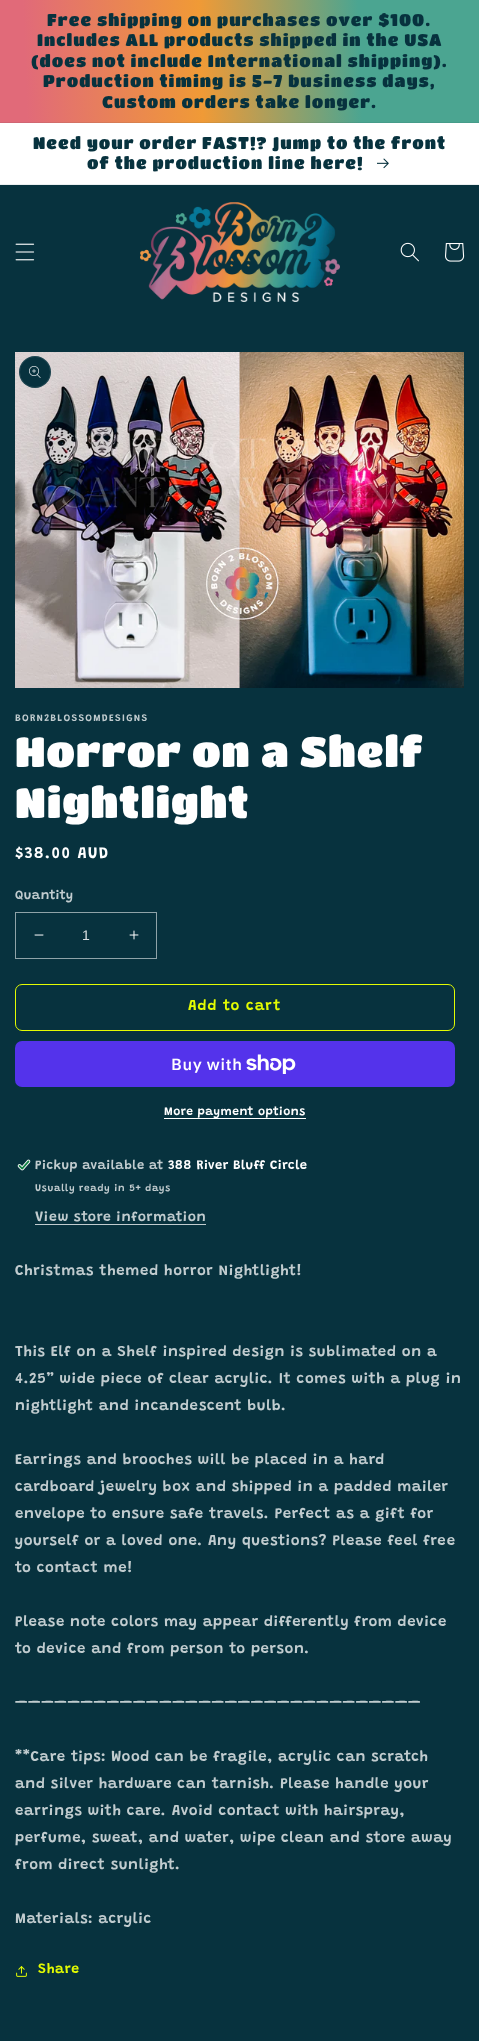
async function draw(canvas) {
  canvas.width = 479
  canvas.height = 2041
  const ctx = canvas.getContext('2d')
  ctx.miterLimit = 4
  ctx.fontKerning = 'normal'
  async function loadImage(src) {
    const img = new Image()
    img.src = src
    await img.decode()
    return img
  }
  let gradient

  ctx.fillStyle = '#07323e'
  ctx.fillRect(0, 0, 479, 2041)
  gradient = ctx.createLinearGradient(-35, 1030, 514, 1011)
  gradient.addColorStop(0.17, '#e16a79')
  gradient.addColorStop(0.49, '#f09a36')
  gradient.addColorStop(0.78, '#4ba591')
  ctx.fillStyle = gradient
  ctx.fillRect(0, 0, 479, 122)
  gradient = ctx.createLinearGradient(-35, 1030, 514, 1011)
  gradient.addColorStop(0.17, '#d06674')
  gradient.addColorStop(0.49, '#dd9237')
  gradient.addColorStop(0.78, '#469c8a')
  ctx.fillStyle = gradient
  ctx.fillRect(0, 122, 479, 1)
  ctx.letterSpacing = '1px'
  ctx.font = '16.8px Titan One'
  ctx.fillStyle = '#07323e'
  ctx.fillText('Free shipping on purchases over $100.', 47, 26)
  ctx.fillText('Includes ALL products shipped in the USA', 37, 46)
  ctx.fillText('(does not include International shipping).', 31, 67)
  ctx.fillText('Production timing is 5-7 business days,', 43, 87)
  ctx.fillText('Custom orders take longer.', 102, 108)
  ctx.fillStyle = '#fff'
  ctx.fillRect(0, 123, 479, 61)
  ctx.fillStyle = '#ebeff0'
  ctx.fillRect(0, 184, 479, 1)
  ctx.fillStyle = '#07323e'
  ctx.fillText('Need your order FAST!? Jump to the front', 33, 149)
  ctx.fillText('of the production line here!', 87, 169)
  ctx.drawImage(await loadImage('image0.png'), 377, 158, 12, 11)
  ctx.drawImage(await loadImage('image1.png'), 15, 243, 20, 18)
  ctx.drawImage(await loadImage('image2.png'), 140, 202, 200, 100)
  ctx.drawImage(await loadImage('image3.png'), 400, 242, 19, 20)
  ctx.drawImage(await loadImage('image4.png'), 445, 243, 20, 19)
  ctx.drawImage(await loadImage('image5.png'), 15, 352, 449, 336)
  ctx.beginPath()
  ctx.arc(35, 372, 16, 0, 2 * Math.PI)
  ctx.fill()
  ctx.beginPath()
  ctx.arc(35, 372, 15.5, 0, 2 * Math.PI)
  ctx.strokeStyle = '#ffffff1a'
  ctx.stroke()
  ctx.drawImage(await loadImage('image6.png'), 29, 366, 12, 12)
  ctx.letterSpacing = '1.25px'
  ctx.font = '600 10px Grandstander'
  ctx.fillStyle = '#c1cccf'
  ctx.fillText('BORN2BLOSSOMDESIGNS', 15, 721)
  ctx.letterSpacing = '0.8px'
  ctx.font = '42px Titan One'
  ctx.fillStyle = '#fff'
  ctx.fillText('Horror on a Shelf', 15, 767)
  ctx.fillText('Nightlight', 15, 818)
  ctx.letterSpacing = '1.25px'
  ctx.font = '600 16px Grandstander'
  ctx.fillText('$38.00 AUD', 15, 858)
  ctx.letterSpacing = '0.4px'
  ctx.font = '600 13px Grandstander'
  ctx.fillStyle = '#c1cccf'
  ctx.fillText('Quantity', 15, 899)
  ctx.drawImage(await loadImage('image7.png'), 34, 934, 10, 2)
  ctx.drawImage(await loadImage('image8.png'), 129, 930, 10, 10)
  ctx.strokeStyle = '#8fa3a8'
  ctx.strokeRect(15.5, 912.5, 141, 46)
  ctx.letterSpacing = '0px'
  ctx.font = '14px Liberation Sans'
  ctx.fillStyle = '#dae0e2'
  ctx.fillText('1', 82, 940)
  ctx.beginPath()
  ctx.roundRect(15.5, 984.5, 439, 46, 6.5)
  ctx.strokeStyle = '#e3fc02'
  ctx.stroke()
  ctx.letterSpacing = '1px'
  ctx.font = '600 15px Grandstander'
  ctx.fillStyle = '#e3fc02'
  ctx.fillText('Add to cart', 188, 1010)
  ctx.fillStyle = '#5433eb'
  ctx.beginPath()
  ctx.roundRect(15, 1041, 440, 46, 7)
  ctx.fill()
  ctx.letterSpacing = '0.6px'
  ctx.font = '600 16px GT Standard'
  ctx.fillStyle = '#fff'
  ctx.fillText('Buy with', 171, 1070)
  ctx.drawImage(await loadImage('image9.png'), 246, 1054, 50, 20)
  ctx.fillRect(164, 1118, 142, 1)
  ctx.letterSpacing = '0.5px'
  ctx.font = '600 12px Grandstander'
  ctx.fillText('More payment options', 164, 1115)
  ctx.drawImage(await loadImage('image10.png'), 17, 1159, 14, 12)
  ctx.letterSpacing = '0.4px'
  ctx.font = '600 13px Grandstander'
  ctx.fillStyle = '#c1cccf'
  ctx.fillText('Pickup available at', 35, 1169)
  ctx.fillStyle = '#fff'
  ctx.fillText('388 River Bluff Circle', 168, 1169)
  ctx.letterSpacing = '0.7px'
  ctx.font = '600 10px Grandstander'
  ctx.fillStyle = '#c1cccf'
  ctx.fillText('Usually ready in 5+ days', 35, 1191)
  ctx.letterSpacing = '0.6px'
  ctx.font = '600 14px Grandstander'
  ctx.fillText('View store information', 35, 1221)
  ctx.fillRect(35, 1224, 171, 1)
  ctx.font = '600 15px Grandstander'
  ctx.fillText('Christmas themed horror Nightlight!', 15, 1275)
  ctx.fillText('This Elf on a Shelf inspired design is sublimated on a', 15, 1356)
  ctx.fillText('4.25” wide piece of clear acrylic. It comes with a plug in', 15, 1383)
  ctx.fillText('nightlight and incandescent bulb.', 15, 1410)
  ctx.fillText('Earrings and brooches will be placed in a hard', 15, 1464)
  ctx.fillText('cardboard jewelry box and shipped in a padded mailer', 15, 1491)
  ctx.fillText('envelope to ensure safe travels. Perfect as a gift for', 15, 1518)
  ctx.fillText('yourself or a loved one. Any questions? Please feel free', 15, 1545)
  ctx.fillText('to contact me!', 15, 1572)
  ctx.fillText('Please note colors may appear differently from device', 15, 1626)
  ctx.fillText('to device and from person to person.', 15, 1653)
  ctx.fillText('———————————————————————————————', 15, 1707)
  ctx.fillText('**Care tips: Wood can be fragile, acrylic can scratch', 15, 1761)
  ctx.fillText('and silver hardware can tarnish. Please handle your', 15, 1788)
  ctx.fillText('earrings with care. Avoid contact with hairspray,', 15, 1815)
  ctx.fillText('perfume, sweat, and water, wipe clean and store away', 15, 1842)
  ctx.fillText('from direct sunlight.', 15, 1869)
  ctx.fillText('Materials: acrylic', 15, 1923)
  ctx.drawImage(await loadImage('image11.png'), 16, 1966, 11, 11)
  ctx.font = '600 14px Grandstander'
  ctx.fillStyle = '#e3fc02'
  ctx.fillText('Share', 38, 1973)
}

draw(document.querySelector('canvas'))
